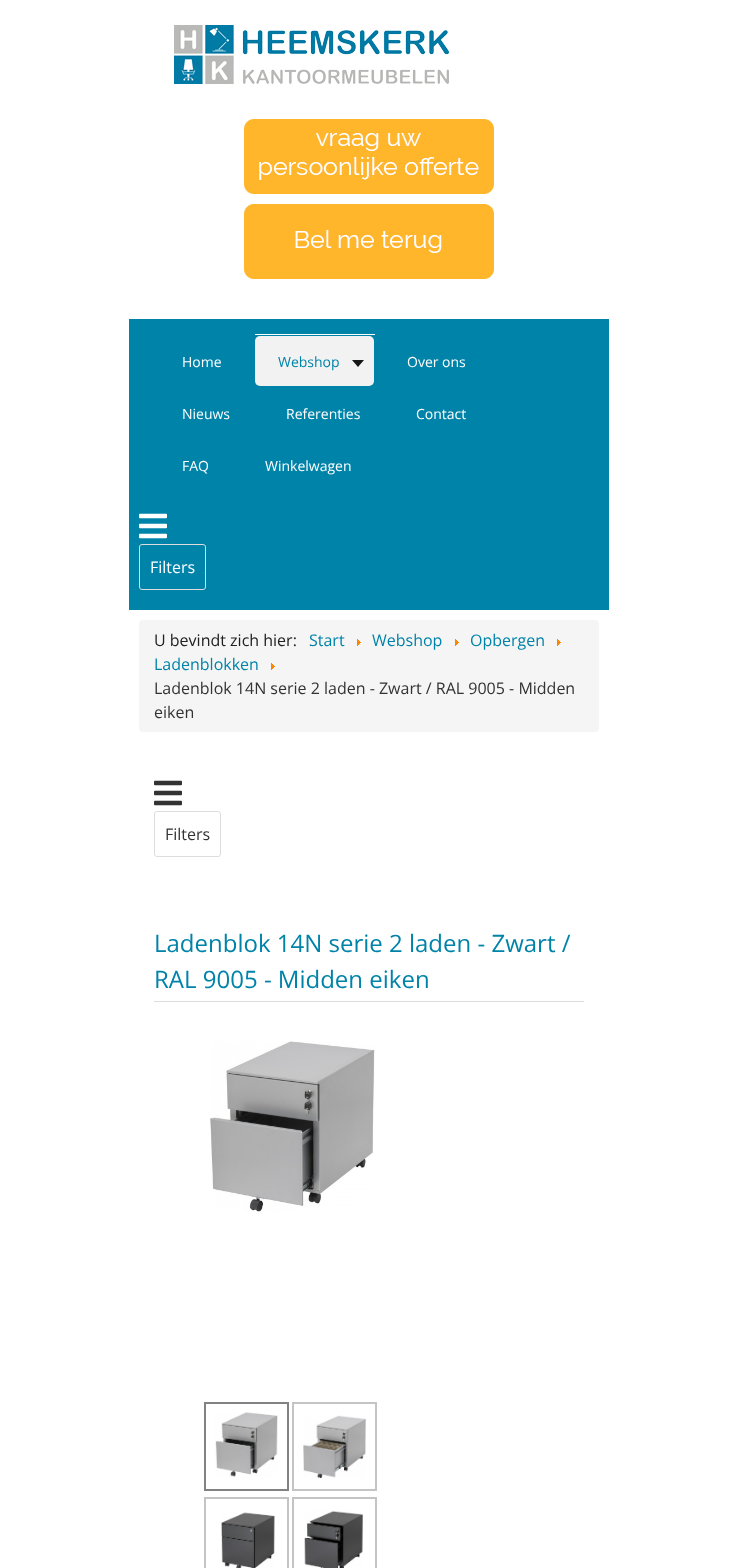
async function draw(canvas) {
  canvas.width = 738
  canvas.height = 1568
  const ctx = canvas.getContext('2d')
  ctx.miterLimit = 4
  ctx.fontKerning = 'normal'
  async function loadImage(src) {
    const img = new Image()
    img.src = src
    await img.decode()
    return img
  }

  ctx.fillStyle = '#fff'
  ctx.fillRect(0, 0, 738, 1568)
  ctx.drawImage(await loadImage('image0.png'), 174, 25, 275, 59)
  ctx.drawImage(await loadImage('image1.png'), 244, 119, 250, 75)
  ctx.drawImage(await loadImage('image2.png'), 244, 204, 250, 75)
  ctx.fillStyle = '#0083a9'
  ctx.fillRect(129, 319, 480, 291)
  ctx.fillStyle = '#fff'
  ctx.fillRect(255, 334, 120, 1)
  ctx.font = '14px Open Sans'
  ctx.fillText('Home', 182, 367)
  ctx.fillStyle = '#f2f2f2'
  ctx.beginPath()
  ctx.roundRect(255, 336, 119, 50, 5)
  ctx.fill()
  ctx.fillStyle = '#0083a9'
  ctx.fillText('Webshop', 278, 367)
  ctx.fillStyle = '#161616'
  ctx.beginPath()
  ctx.moveTo(352, 360)
  ctx.lineTo(364, 360)
  ctx.lineTo(358, 367)
  ctx.closePath()
  ctx.fill()
  ctx.fillStyle = '#fff'
  ctx.fillText('Over ons', 407, 367)
  ctx.fillText('Nieuws', 182, 419)
  ctx.fillText('Referenties', 286, 419)
  ctx.fillText('Contact', 416, 419)
  ctx.fillText('FAQ', 182, 471)
  ctx.fillText('Winkelwagen', 265, 471)
  ctx.drawImage(await loadImage('image3.png'), 139, 513, 28, 26)
  ctx.beginPath()
  ctx.roundRect(139.5, 544.5, 66, 45, 2.5)
  ctx.strokeStyle = '#ddd'
  ctx.stroke()
  ctx.font = '16px Open Sans'
  ctx.fillText('Filters', 150, 573)
  ctx.fillStyle = '#f5f5f5'
  ctx.beginPath()
  ctx.roundRect(139, 620, 460, 112, 4)
  ctx.fill()
  ctx.fillStyle = '#212121'
  ctx.fillText('U bevindt zich hier:', 154, 646)
  ctx.fillStyle = '#0083a9'
  ctx.fillText('Start', 309, 646)
  ctx.drawImage(await loadImage('image4.png'), 357, 639, 4, 7)
  ctx.fillText('Webshop', 372, 646)
  ctx.drawImage(await loadImage('image4.png'), 455, 639, 4, 7)
  ctx.fillText('Opbergen', 470, 646)
  ctx.drawImage(await loadImage('image4.png'), 557, 639, 4, 7)
  ctx.fillText('Ladenblokken', 154, 670)
  ctx.drawImage(await loadImage('image4.png'), 271, 663, 4, 7)
  ctx.fillStyle = '#333'
  ctx.fillText('Ladenblok 14N serie 2 laden - Zwart / RAL 9005 - Midden', 154, 694)
  ctx.fillText('eiken', 154, 718)
  ctx.drawImage(await loadImage('image5.png'), 154, 780, 28, 26)
  ctx.beginPath()
  ctx.roundRect(154.5, 811.5, 66, 45, 2.5)
  ctx.stroke()
  ctx.fillText('Filters', 165, 840)
  ctx.fillStyle = '#ddd'
  ctx.fillRect(154, 1001, 430, 1)
  ctx.font = '24px Open Sans'
  ctx.fillStyle = '#0083a9'
  ctx.fillText('Ladenblok 14N serie 2 laden - Zwart /', 154, 952)
  ctx.fillText('RAL 9005 - Midden eiken', 154, 988)
  ctx.drawImage(await loadImage('image6.png'), 210, 1041, 165, 171)
  ctx.strokeStyle = '#828282'
  ctx.lineWidth = 2
  ctx.strokeRect(205, 1403, 83, 87)
  ctx.drawImage(await loadImage('image7.png'), 215, 1412, 63, 65)
  ctx.strokeStyle = '#c4c4c4'
  ctx.strokeRect(293, 1403, 83, 87)
  ctx.drawImage(await loadImage('image8.png'), 303, 1415, 63, 64)
  ctx.strokeRect(205, 1498, 83, 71)
  ctx.drawImage(await loadImage('image9.png'), 221, 1512, 54, 56)
  ctx.strokeRect(293, 1498, 83, 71)
  ctx.drawImage(await loadImage('image10.png'), 304, 1510, 60, 58)
}

draw(document.querySelector('canvas'))
